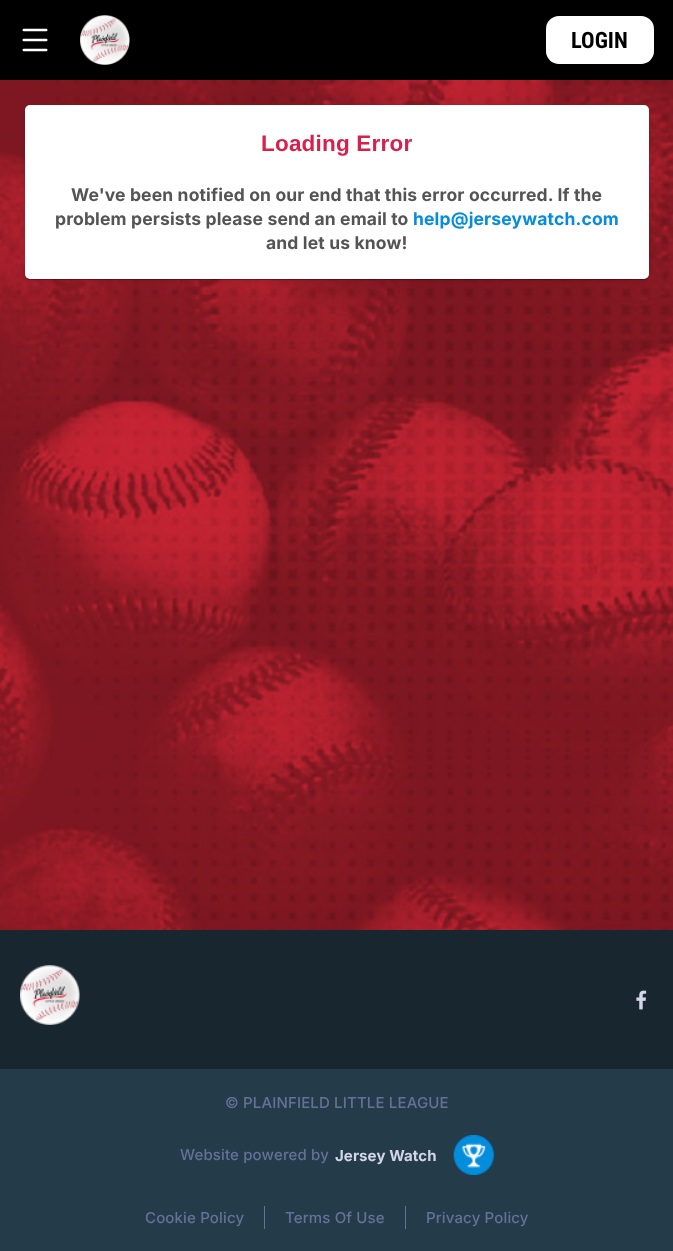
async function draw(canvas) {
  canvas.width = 673
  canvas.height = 1251
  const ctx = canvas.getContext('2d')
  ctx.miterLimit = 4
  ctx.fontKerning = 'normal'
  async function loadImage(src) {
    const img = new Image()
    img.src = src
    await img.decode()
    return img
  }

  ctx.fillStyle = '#000'
  ctx.fillRect(0, 0, 673, 1251)
  ctx.drawImage(await loadImage('image0.png'), 22, 28, 26, 24)
  ctx.drawImage(await loadImage('image1.png'), 80, 15, 50, 50)
  ctx.fillStyle = '#fff'
  ctx.beginPath()
  ctx.roundRect(546, 16, 108, 48, 13)
  ctx.fill()
  ctx.font = 'bold 22.5px Roboto Condensed'
  ctx.fillStyle = '#000'
  ctx.fillText('LOGIN', 571, 48)
  ctx.drawImage(await loadImage('image2.png'), 0, 80, 673, 850)
  ctx.fillStyle = '#0000001f'
  ctx.filter = 'blur(2px)'
  ctx.beginPath()
  ctx.roundRect(25, 106, 624, 174, 5)
  ctx.fill()
  ctx.filter = 'none'
  ctx.fillStyle = '#00000024'
  ctx.filter = 'blur(0.5px)'
  ctx.beginPath()
  ctx.roundRect(25, 106, 624, 174, 5)
  ctx.fill()
  ctx.filter = 'none'
  ctx.fillStyle = '#00000033'
  ctx.filter = 'blur(0.5px)'
  ctx.beginPath()
  ctx.roundRect(26, 109, 622, 171, 4)
  ctx.fill()
  ctx.filter = 'none'
  ctx.fillStyle = '#fff'
  ctx.beginPath()
  ctx.roundRect(25, 105, 624, 174, 5)
  ctx.fill()
  ctx.letterSpacing = '0.2px'
  ctx.font = 'bold 22.5px Liberation Sans'
  ctx.fillStyle = '#d8204c'
  ctx.fillText('Loading Error', 261, 151)
  ctx.letterSpacing = '0.15px'
  ctx.font = 'bold 17.5px Inter'
  ctx.fillStyle = '#535453'
  ctx.fillText('We\'ve been notified on our end that this error occurred. If the', 71, 201)
  ctx.fillText('problem persists please send an email to', 55, 225)
  ctx.fillStyle = '#048cdd'
  ctx.fillText('help@jerseywatch.com', 413, 225)
  ctx.fillStyle = '#535453'
  ctx.fillText('and let us know!', 266, 249)
  ctx.fillStyle = '#18262f'
  ctx.fillRect(0, 930, 673, 139)
  ctx.drawImage(await loadImage('image3.png'), 20, 965, 60, 60)
  ctx.drawImage(await loadImage('image4.png'), 636, 990, 11, 20)
  ctx.fillStyle = '#243b4a'
  ctx.fillRect(0, 1069, 673, 182)
  ctx.font = '500 15px Inter'
  ctx.fillStyle = '#657197'
  ctx.fillText('© PLAINFIELD LITTLE LEAGUE', 225, 1108)
  ctx.fillText('Website powered by', 180, 1160)
  ctx.letterSpacing = '0.1px'
  ctx.font = 'bold 15px Inter'
  ctx.fillStyle = '#d3d6e9'
  ctx.fillText('Jersey Watch', 335, 1161)
  ctx.drawImage(await loadImage('image5.png'), 453, 1135, 41, 40)
  ctx.letterSpacing = '0.15px'
  ctx.font = '500 15px Inter'
  ctx.fillStyle = '#657197'
  ctx.fillText('Cookie Policy', 145, 1223)
  ctx.fillRect(264, 1206, 1, 23)
  ctx.fillText('Terms Of Use', 285, 1223)
  ctx.fillRect(405, 1206, 1, 23)
  ctx.fillText('Privacy Policy', 426, 1223)
}

draw(document.querySelector('canvas'))
